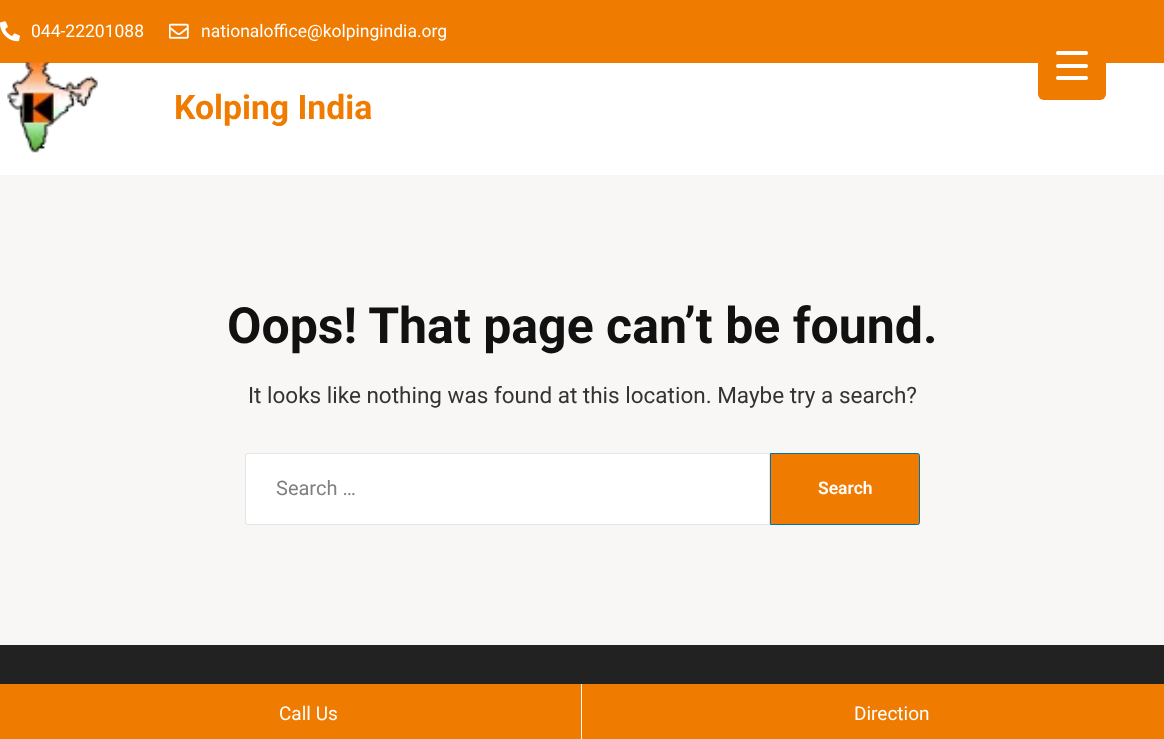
async function draw(canvas) {
  canvas.width = 1164
  canvas.height = 739
  const ctx = canvas.getContext('2d')
  ctx.miterLimit = 4
  ctx.fontKerning = 'normal'
  async function loadImage(src) {
    const img = new Image()
    img.src = src
    await img.decode()
    return img
  }

  ctx.fillStyle = '#fff'
  ctx.fillRect(0, 0, 1164, 739)
  ctx.fillStyle = '#ef7b00'
  ctx.fillRect(0, 0, 1164, 63)
  ctx.drawImage(await loadImage('image0.png'), 0, 21, 20, 21)
  ctx.font = '17.5px Roboto'
  ctx.fillStyle = '#fff'
  ctx.fillText('044-22201088', 31, 37)
  ctx.drawImage(await loadImage('image1.png'), 169, 23, 20, 16)
  ctx.fillText('nationaloffice@kolpingindia.org', 201, 37)
  ctx.drawImage(await loadImage('image2.png'), 7, 62, 91, 91)
  ctx.font = 'bold 33.75px Roboto'
  ctx.fillStyle = '#ef7b00'
  ctx.fillText('Kolping India', 174, 119)
  ctx.beginPath()
  ctx.roundRect(1038, 31, 68, 69, 6)
  ctx.fill()
  ctx.fillStyle = '#fff'
  ctx.beginPath()
  ctx.roundRect(1056, 64, 32, 4, 2)
  ctx.fill()
  ctx.beginPath()
  ctx.roundRect(1056, 51, 32, 4, 2)
  ctx.fill()
  ctx.beginPath()
  ctx.roundRect(1056, 76, 32, 4, 2)
  ctx.fill()
  ctx.fillStyle = '#f8f7f5'
  ctx.fillRect(0, 175, 1164, 470)
  ctx.font = 'bold 50px Roboto'
  ctx.fillStyle = '#111'
  ctx.fillText('Oops! That page can’t be found.', 227, 343)
  ctx.font = '22.5px Roboto'
  ctx.fillStyle = '#333'
  ctx.fillText('It looks like nothing was found at this location. Maybe try a search?', 248, 403)
  ctx.fillStyle = '#fff'
  ctx.beginPath()
  ctx.roundRect(245, 453, 525, 72, [2.5, 0, 0, 2.5])
  ctx.fill()
  ctx.beginPath()
  ctx.roundRect(245.5, 453.5, 524, 71, [2, 0, 0, 2])
  ctx.strokeStyle = '#0000001a'
  ctx.stroke()
  ctx.font = '20px Roboto'
  ctx.fillStyle = '#808080'
  ctx.fillText('Search …', 276, 495)
  ctx.fillStyle = '#ef7b00'
  ctx.beginPath()
  ctx.roundRect(770.5, 453.5, 149, 71, [0, 2, 2, 0])
  ctx.fill()
  ctx.strokeStyle = '#0073a8'
  ctx.stroke()
  ctx.font = '600 17.5px Roboto'
  ctx.fillStyle = '#fff'
  ctx.fillText('Search', 818, 494)
  ctx.fillStyle = '#222'
  ctx.fillRect(0, 645, 1164, 39)
  ctx.fillStyle = '#ef7b00'
  ctx.fillRect(0, 684, 1164, 55)
  ctx.fillStyle = '#fff'
  ctx.fillRect(581, 684, 1, 55)
  ctx.font = '19px Roboto'
  ctx.fillText('Call Us', 279, 720)
  ctx.fillText('Direction', 854, 720)
}

draw(document.querySelector('canvas'))
